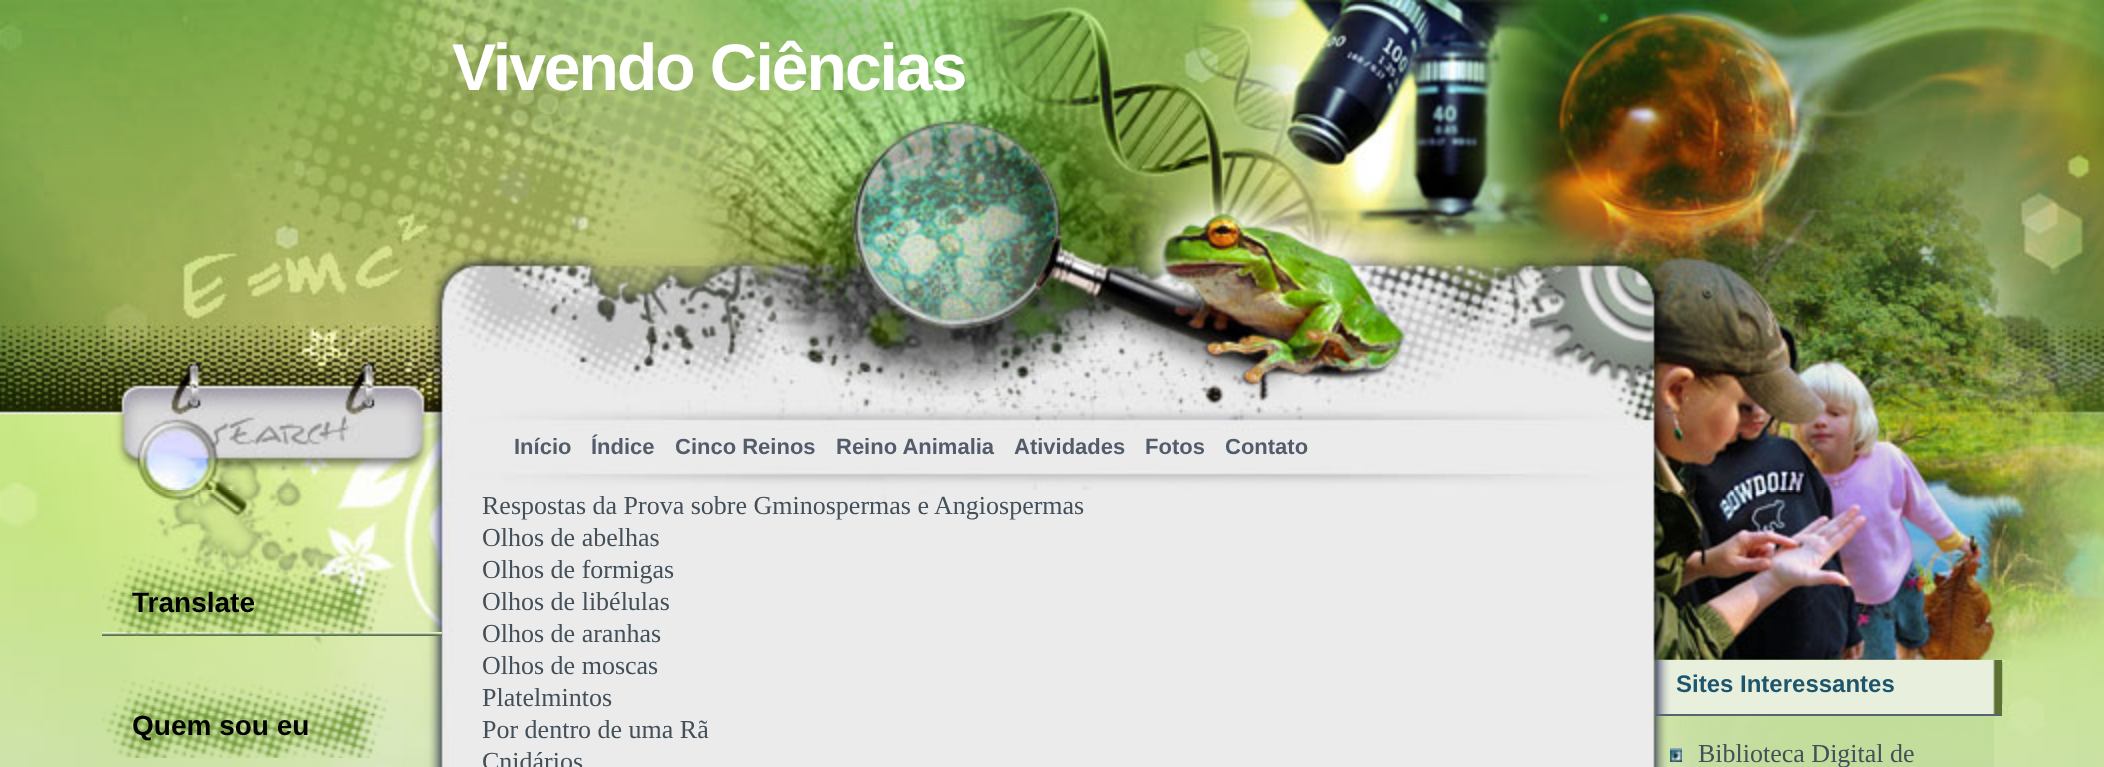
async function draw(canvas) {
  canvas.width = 2104
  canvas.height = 767
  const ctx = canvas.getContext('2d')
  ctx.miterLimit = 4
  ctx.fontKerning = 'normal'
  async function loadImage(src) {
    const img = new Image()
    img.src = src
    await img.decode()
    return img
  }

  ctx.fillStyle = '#fff'
  ctx.fillRect(0, 0, 2104, 767)
  ctx.drawImage(await loadImage('image0.png'), 0, 0, 2104, 767)
  ctx.drawImage(await loadImage('image1.png'), 102, 0, 1900, 490)
  ctx.letterSpacing = '-2px'
  ctx.font = 'bold 66px Liberation Sans'
  ctx.fillText('Vivendo Ciências', 452, 90)
  ctx.drawImage(await loadImage('image2.png'), 138, 410, 260, 80)
  ctx.letterSpacing = '0px'
  ctx.font = 'bold 22px Liberation Sans'
  ctx.fillStyle = '#525c6a'
  ctx.fillText('Início', 514, 454)
  ctx.fillText('Índice', 591, 454)
  ctx.fillText('Cinco Reinos', 675, 454)
  ctx.fillText('Reino Animalia', 836, 454)
  ctx.fillText('Atividades', 1014, 454)
  ctx.fillText('Fotos', 1145, 454)
  ctx.fillText('Contato', 1225, 454)
  ctx.drawImage(await loadImage('image3.png'), 102, 490, 1900, 277)
  ctx.drawImage(await loadImage('image4.png'), 102, 632, 340, 4)
  ctx.drawImage(await loadImage('image5.png'), 102, 553, 287, 83)
  ctx.font = 'bold 28px Liberation Sans'
  ctx.fillStyle = '#000'
  ctx.fillText('Translate', 132, 612)
  ctx.drawImage(await loadImage('image6.png'), 102, 677, 287, 81)
  ctx.fillText('Quem sou eu', 132, 735)
  ctx.font = '26px Liberation Serif'
  ctx.fillStyle = '#435059'
  ctx.fillText('Respostas da Prova sobre Gminospermas e Angiospermas', 482, 514)
  ctx.fillText('Olhos de abelhas', 482, 546)
  ctx.fillText('Olhos de formigas', 482, 578)
  ctx.fillText('Olhos de libélulas', 482, 610)
  ctx.fillText('Olhos de aranhas', 482, 642)
  ctx.fillText('Olhos de moscas', 482, 674)
  ctx.fillText('Platelmintos', 482, 706)
  ctx.fillText('Por dentro de uma Rã', 482, 738)
  ctx.fillText('Cnidários', 482, 770)
  ctx.drawImage(await loadImage('image7.png'), 1656, 716, 338, 51)
  ctx.drawImage(await loadImage('image8.png'), 1656, 660, 346, 54)
  ctx.fillStyle = '#546471'
  ctx.fillRect(1656, 714, 346, 2)
  ctx.font = 'bold 24px Liberation Sans'
  ctx.fillStyle = '#1d566c'
  ctx.fillText('Sites Interessantes', 1676, 692)
  ctx.drawImage(await loadImage('image9.png'), 1670, 748, 12, 14)
  ctx.font = '26px Liberation Serif'
  ctx.fillStyle = '#435059'
  ctx.fillText('Biblioteca Digital de', 1698, 762)
}

draw(document.querySelector('canvas'))
